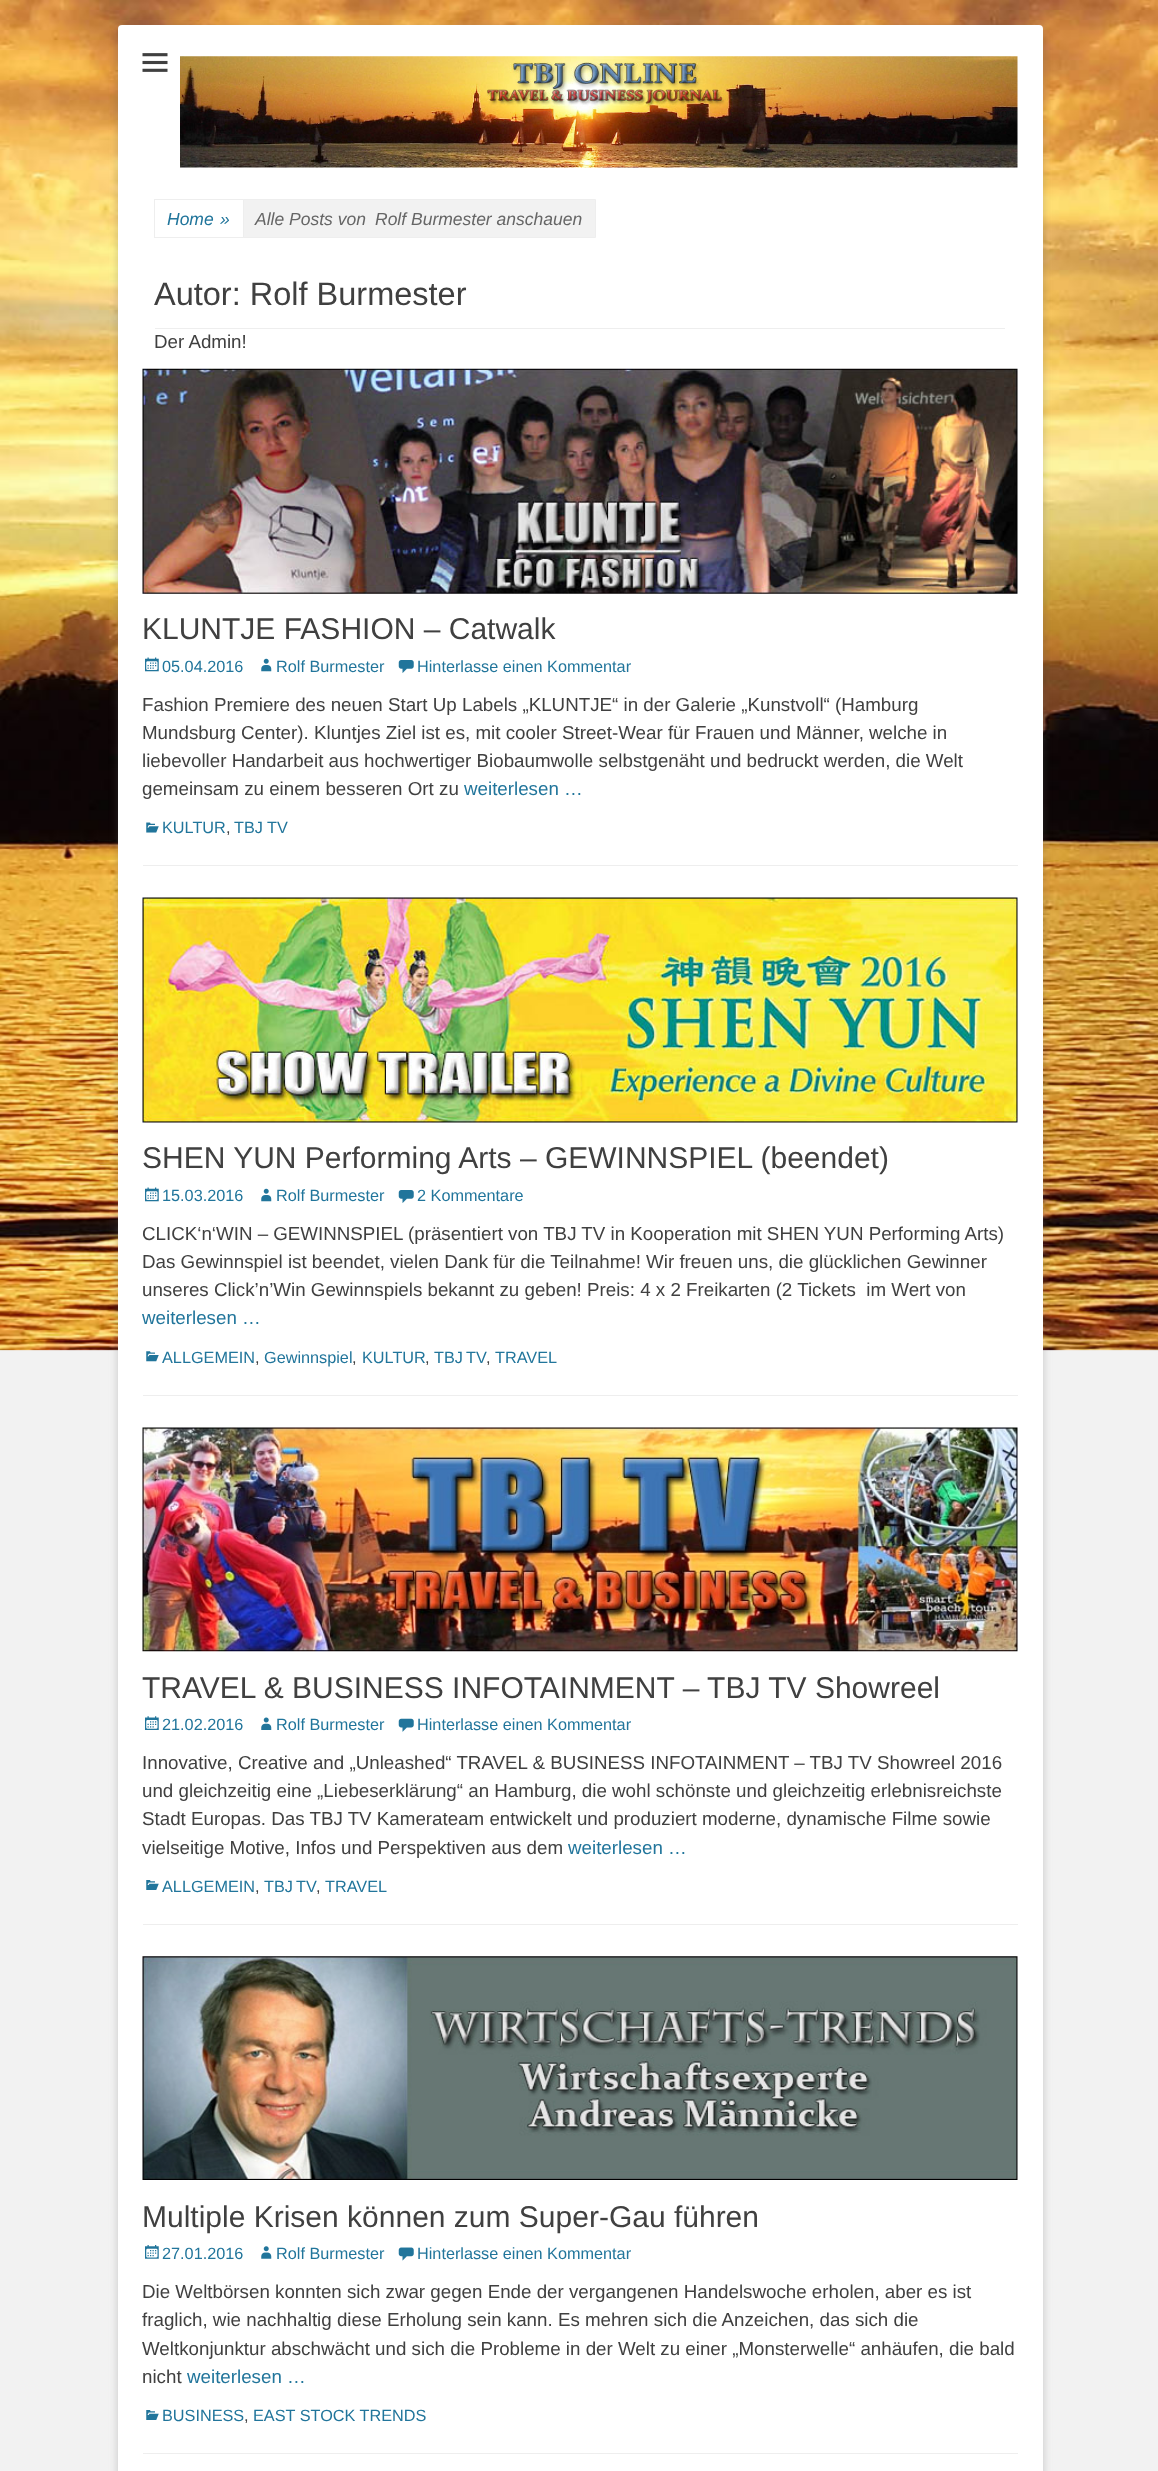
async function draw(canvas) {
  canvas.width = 1158
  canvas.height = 2471
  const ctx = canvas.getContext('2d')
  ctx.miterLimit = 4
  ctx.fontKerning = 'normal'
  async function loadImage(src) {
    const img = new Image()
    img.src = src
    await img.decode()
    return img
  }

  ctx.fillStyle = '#f2f2f2'
  ctx.fillRect(0, 0, 1158, 2471)
  ctx.drawImage(await loadImage('image0.png'), 0, 0, 1158, 1351)
  ctx.fillStyle = '#6464644d'
  ctx.filter = 'blur(4px)'
  ctx.beginPath()
  ctx.roundRect(118, 28, 925, 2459, 4)
  ctx.fill()
  ctx.filter = 'none'
  ctx.fillStyle = '#fff'
  ctx.beginPath()
  ctx.roundRect(118, 25, 925, 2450, 4)
  ctx.fill()
  ctx.drawImage(await loadImage('image1.png'), 142, 53, 26, 19)
  ctx.drawImage(await loadImage('image2.png'), 180, 56, 838, 112)
  ctx.strokeStyle = '#eee'
  ctx.strokeRect(154.5, 199.5, 89, 38)
  ctx.font = 'italic 17.5px Liberation Sans'
  ctx.fillStyle = '#21759b'
  ctx.fillText('Home', 167, 225)
  ctx.fillText('»', 220, 225)
  ctx.fillStyle = '#f2f2f2'
  ctx.beginPath()
  ctx.rect(243.5, 199.5, 352, 38)
  ctx.fill()
  ctx.stroke()
  ctx.fillStyle = '#666'
  ctx.fillText('Alle Posts von', 255, 225)
  ctx.fillText('Rolf Burmester anschauen', 375, 225)
  ctx.fillStyle = '#eee'
  ctx.fillRect(155, 328, 850, 1)
  ctx.font = '32.5px Liberation Sans'
  ctx.fillStyle = '#404040'
  ctx.fillText('Autor: Rolf Burmester', 154, 305)
  ctx.font = '18.75px Liberation Sans'
  ctx.fillText('Der Admin!', 154, 348)
  ctx.fillStyle = '#eee'
  ctx.fillRect(143, 865, 875, 1)
  ctx.drawImage(await loadImage('image3.png'), 142, 368, 876, 226)
  ctx.font = '30px Liberation Sans'
  ctx.fillStyle = '#404040'
  ctx.fillText('KLUNTJE FASHION – Catwalk', 142, 639)
  ctx.drawImage(await loadImage('image4.png'), 145, 657, 14, 15)
  ctx.font = '16.25px Liberation Sans'
  ctx.fillStyle = '#21759b'
  ctx.fillText('05.04.2016', 162, 672)
  ctx.drawImage(await loadImage('image5.png'), 261, 658, 11, 14)
  ctx.fillText('Rolf Burmester', 276, 672)
  ctx.drawImage(await loadImage('image6.png'), 398, 660, 16, 13)
  ctx.fillText('Hinterlasse einen Kommentar', 417, 672)
  ctx.font = '18.75px Liberation Sans'
  ctx.fillStyle = '#404040'
  ctx.fillText('Fashion Premiere des neuen Start Up Labels „KLUNTJE“ in der Galerie „Kunstvoll“ (Hamburg', 142, 711)
  ctx.fillText('Mundsburg Center). Kluntjes Ziel ist es, mit cooler Street-Wear für Frauen und Männer, welche in', 142, 739)
  ctx.fillText('liebevoller Handarbeit aus hochwertiger Biobaumwolle selbstgenäht und bedruckt werden, die Welt', 142, 767)
  ctx.fillText('gemeinsam zu einem besseren Ort zu', 142, 795)
  ctx.fillStyle = '#21759b'
  ctx.fillText('weiterlesen …', 464, 795)
  ctx.drawImage(await loadImage('image7.png'), 146, 822, 13, 11)
  ctx.font = '16.25px Liberation Sans'
  ctx.fillText('KULTUR', 162, 833)
  ctx.fillStyle = '#404040'
  ctx.fillText(',', 226, 833)
  ctx.fillStyle = '#21759b'
  ctx.fillText('TBJ TV', 234, 833)
  ctx.fillStyle = '#eee'
  ctx.fillRect(143, 1395, 875, 1)
  ctx.drawImage(await loadImage('image8.png'), 142, 897, 876, 226)
  ctx.font = '30px Liberation Sans'
  ctx.fillStyle = '#404040'
  ctx.fillText('SHEN YUN Performing Arts – GEWINNSPIEL (beendet)', 142, 1168)
  ctx.drawImage(await loadImage('image4.png'), 145, 1187, 14, 15)
  ctx.font = '16.25px Liberation Sans'
  ctx.fillStyle = '#21759b'
  ctx.fillText('15.03.2016', 162, 1201)
  ctx.drawImage(await loadImage('image5.png'), 261, 1188, 11, 14)
  ctx.fillText('Rolf Burmester', 276, 1201)
  ctx.drawImage(await loadImage('image6.png'), 398, 1190, 16, 13)
  ctx.fillText('2 Kommentare', 417, 1201)
  ctx.font = '18.75px Liberation Sans'
  ctx.fillStyle = '#404040'
  ctx.fillText('CLICK‘n‘WIN – GEWINNSPIEL (präsentiert von TBJ TV in Kooperation mit SHEN YUN Performing Arts)', 142, 1240)
  ctx.fillText('Das Gewinnspiel ist beendet, vielen Dank für die Teilnahme! Wir freuen uns, die glücklichen Gewinner', 142, 1268)
  ctx.fillText('unseres Click’n’Win Gewinnspiels bekannt zu geben! Preis: 4 x 2 Freikarten (2 Tickets  im Wert von', 142, 1296)
  ctx.fillStyle = '#21759b'
  ctx.fillText('weiterlesen …', 142, 1324)
  ctx.drawImage(await loadImage('image9.png'), 146, 1351, 13, 11)
  ctx.font = '16.25px Liberation Sans'
  ctx.fillText('ALLGEMEIN', 162, 1363)
  ctx.fillText('Gewinnspiel', 264, 1363)
  ctx.fillText('KULTUR', 362, 1363)
  ctx.wordSpacing = '-1px'
  ctx.fillText('TBJ TV', 434, 1363)
  ctx.wordSpacing = '0px'
  ctx.fillText('TRAVEL', 495, 1363)
  ctx.fillStyle = '#404040'
  ctx.fillText(',', 255, 1363)
  ctx.fillText(',', 352, 1363)
  ctx.fillText(',', 425, 1363)
  ctx.fillText(',', 486, 1363)
  ctx.fillStyle = '#eee'
  ctx.fillRect(143, 1924, 875, 1)
  ctx.drawImage(await loadImage('image10.png'), 142, 1427, 876, 225)
  ctx.font = '30px Liberation Sans'
  ctx.fillStyle = '#404040'
  ctx.fillText('TRAVEL & BUSINESS INFOTAINMENT – TBJ TV Showreel', 142, 1698)
  ctx.drawImage(await loadImage('image11.png'), 145, 1716, 14, 14)
  ctx.font = '16.25px Liberation Sans'
  ctx.fillStyle = '#21759b'
  ctx.fillText('21.02.2016', 162, 1730)
  ctx.drawImage(await loadImage('image12.png'), 261, 1717, 11, 13)
  ctx.fillText('Rolf Burmester', 276, 1730)
  ctx.drawImage(await loadImage('image13.png'), 398, 1718, 16, 14)
  ctx.fillText('Hinterlasse einen Kommentar', 417, 1730)
  ctx.font = '18.75px Liberation Sans'
  ctx.fillStyle = '#404040'
  ctx.fillText('Innovative, Creative and „Unleashed“ TRAVEL & BUSINESS INFOTAINMENT – TBJ TV Showreel 2016', 142, 1769)
  ctx.fillText('und gleichzeitig eine „Liebeserklärung“ an Hamburg, die wohl schönste und gleichzeitig erlebnisreichste', 142, 1797)
  ctx.fillText('Stadt Europas. Das TBJ TV Kamerateam entwickelt und produziert moderne, dynamische Filme sowie', 142, 1825)
  ctx.fillText('vielseitige Motive, Infos und Perspektiven aus dem', 142, 1854)
  ctx.fillStyle = '#21759b'
  ctx.fillText('weiterlesen …', 568, 1854)
  ctx.drawImage(await loadImage('image14.png'), 146, 1880, 13, 10)
  ctx.font = '16.25px Liberation Sans'
  ctx.fillText('ALLGEMEIN', 162, 1892)
  ctx.wordSpacing = '-1px'
  ctx.fillText('TBJ TV', 264, 1892)
  ctx.wordSpacing = '0px'
  ctx.fillText('TRAVEL', 325, 1892)
  ctx.fillStyle = '#404040'
  ctx.fillText(',', 255, 1892)
  ctx.fillText(',', 316, 1892)
  ctx.fillStyle = '#eee'
  ctx.fillRect(143, 2453, 875, 1)
  ctx.drawImage(await loadImage('image15.png'), 142, 1956, 876, 224)
  ctx.font = '30px Liberation Sans'
  ctx.fillStyle = '#404040'
  ctx.fillText('Multiple Krisen können zum Super-Gau führen', 142, 2227)
  ctx.drawImage(await loadImage('image16.png'), 145, 2245, 14, 14)
  ctx.font = '16.25px Liberation Sans'
  ctx.fillStyle = '#21759b'
  ctx.fillText('27.01.2016', 162, 2259)
  ctx.drawImage(await loadImage('image17.png'), 261, 2246, 11, 13)
  ctx.fillText('Rolf Burmester', 276, 2259)
  ctx.drawImage(await loadImage('image18.png'), 398, 2247, 16, 14)
  ctx.fillText('Hinterlasse einen Kommentar', 417, 2259)
  ctx.font = '18.75px Liberation Sans'
  ctx.fillStyle = '#404040'
  ctx.fillText('Die Weltbörsen konnten sich zwar gegen Ende der vergangenen Handelswoche erholen, aber es ist', 142, 2298)
  ctx.fillText('fraglich, wie nachhaltig diese Erholung sein kann. Es mehren sich die Anzeichen, das sich die', 142, 2326)
  ctx.fillText('Weltkonjunktur abschwächt und sich die Probleme in der Welt zu einer „Monsterwelle“ anhäufen, die bald', 142, 2355)
  ctx.fillText('nicht', 142, 2383)
  ctx.fillStyle = '#21759b'
  ctx.fillText('weiterlesen …', 187, 2383)
  ctx.drawImage(await loadImage('image14.png'), 146, 2410, 13, 10)
  ctx.font = '16.25px Liberation Sans'
  ctx.fillText('BUSINESS', 162, 2421)
  ctx.fillStyle = '#404040'
  ctx.fillText(',', 244, 2421)
  ctx.fillStyle = '#21759b'
  ctx.fillText('EAST STOCK TRENDS', 253, 2421)
}

draw(document.querySelector('canvas'))
